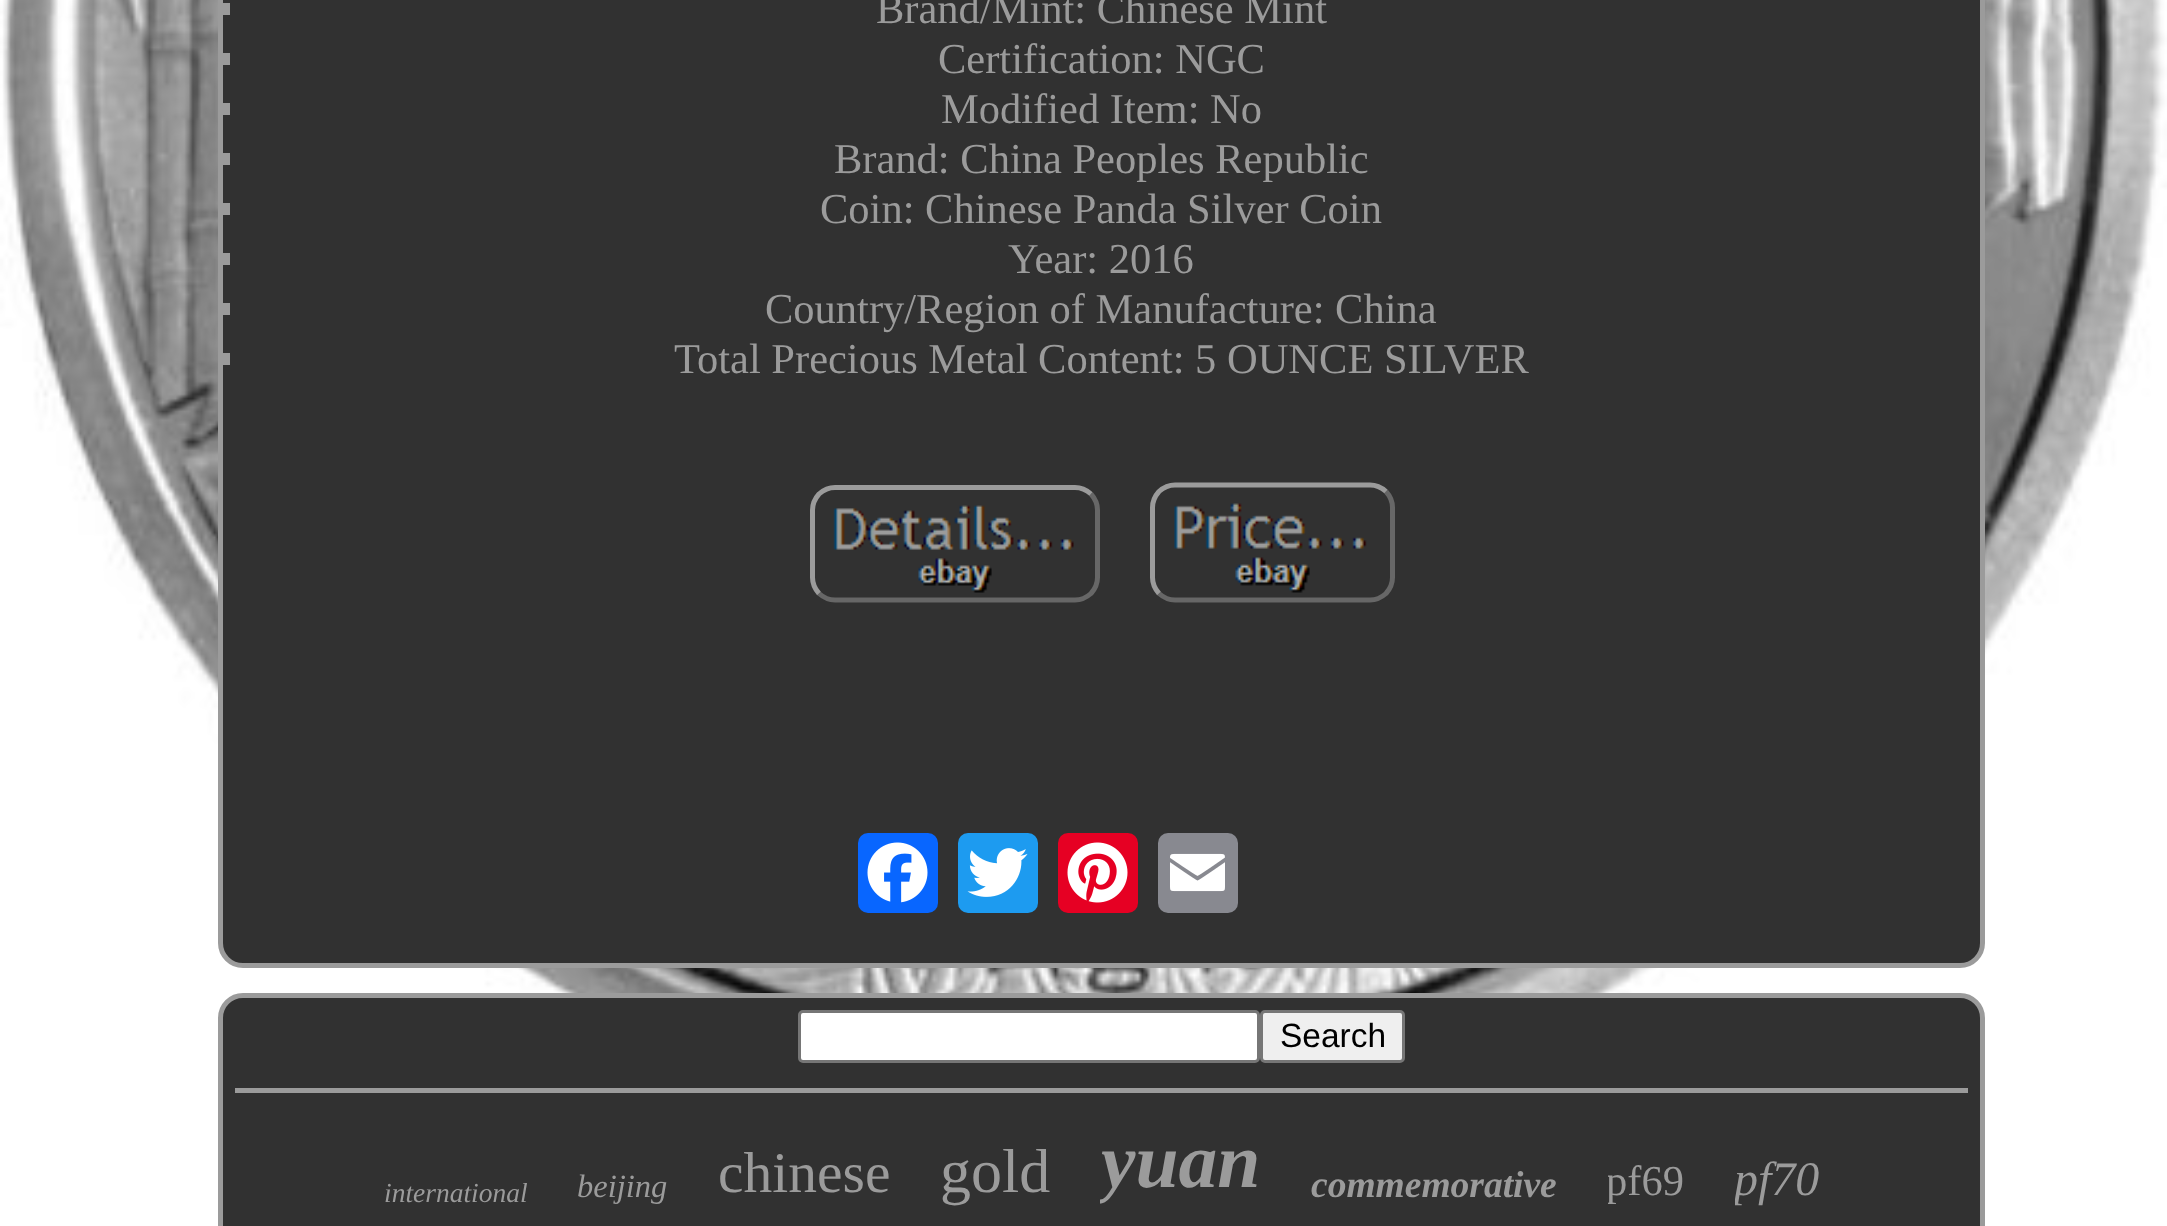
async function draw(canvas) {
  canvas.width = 2167
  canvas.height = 1226
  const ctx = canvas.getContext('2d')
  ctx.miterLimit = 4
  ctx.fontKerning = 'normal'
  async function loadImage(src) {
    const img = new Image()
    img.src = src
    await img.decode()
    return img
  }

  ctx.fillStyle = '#fff'
  ctx.fillRect(0, 0, 2167, 1226)
  ctx.drawImage(await loadImage('image0.png'), 0, 0, 2167, 1226)
  ctx.fillStyle = '#313131'
  ctx.beginPath()
  ctx.roundRect(220.5, -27.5, 1762, 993, 22.5)
  ctx.fill()
  ctx.strokeStyle = '#9b9b9b'
  ctx.lineWidth = 5
  ctx.stroke()
  ctx.fillStyle = '#9b9b9b'
  ctx.fillRect(223, 3, 7, 12)
  ctx.font = '42.5px Liberation Serif'
  ctx.fillText('Brand/Mint: Chinese Mint', 876, 23)
  ctx.fillRect(223, 53, 7, 12)
  ctx.fillText('Certification: NGC', 938, 73)
  ctx.fillRect(223, 103, 7, 12)
  ctx.fillText('Modified Item: No', 941, 123)
  ctx.fillRect(223, 153, 7, 12)
  ctx.fillText('Brand: China Peoples Republic', 834, 173)
  ctx.fillRect(223, 203, 7, 12)
  ctx.fillText('Coin: Chinese Panda Silver Coin', 820, 223)
  ctx.fillRect(223, 253, 7, 12)
  ctx.fillText('Year: 2016', 1008, 273)
  ctx.fillRect(223, 303, 7, 12)
  ctx.fillText('Country/Region of Manufacture: China', 765, 323)
  ctx.fillRect(223, 353, 7, 12)
  ctx.fillText('Total Precious Metal Content: 5 OUNCE SILVER', 674, 373)
  ctx.beginPath()
  ctx.moveTo(1091, 494)
  ctx.bezierCurveTo(1095, 498.5, 1097.5, 504, 1097.5, 510)
  ctx.lineTo(1097.5, 577.5)
  ctx.bezierCurveTo(1097.5, 583.5, 1095, 589, 1091, 593.5)
  ctx.bezierCurveTo(1086.5, 597.5, 1081, 600, 1075, 600)
  ctx.lineTo(835, 600)
  ctx.bezierCurveTo(829, 600, 823.5, 597.5, 819, 593.5)
  ctx.strokeStyle = '#676767'
  ctx.stroke()
  ctx.beginPath()
  ctx.moveTo(819, 593.5)
  ctx.bezierCurveTo(815, 589, 812.5, 583.5, 812.5, 577.5)
  ctx.lineTo(812.5, 510)
  ctx.bezierCurveTo(812.5, 504, 815, 498.5, 819, 494)
  ctx.bezierCurveTo(823.5, 490, 829, 487.5, 835, 487.5)
  ctx.lineTo(1075, 487.5)
  ctx.bezierCurveTo(1081, 487.5, 1086.5, 490, 1091, 494)
  ctx.strokeStyle = '#9b9b9b'
  ctx.stroke()
  ctx.drawImage(await loadImage('image1.png'), 833, 505, 241, 88)
  ctx.beginPath()
  ctx.moveTo(1386, 491.5)
  ctx.bezierCurveTo(1390, 496, 1392.5, 501.5, 1392.5, 507.5)
  ctx.lineTo(1392.5, 577.5)
  ctx.bezierCurveTo(1392.5, 583.5, 1390, 589, 1386, 593.5)
  ctx.bezierCurveTo(1381.5, 597.5, 1376, 600, 1370, 600)
  ctx.lineTo(1175, 600)
  ctx.bezierCurveTo(1169, 600, 1163.5, 597.5, 1159, 593.5)
  ctx.strokeStyle = '#676767'
  ctx.stroke()
  ctx.beginPath()
  ctx.moveTo(1159, 593.5)
  ctx.bezierCurveTo(1155, 589, 1152.5, 583.5, 1152.5, 577.5)
  ctx.lineTo(1152.5, 507.5)
  ctx.bezierCurveTo(1152.5, 501.5, 1155, 496, 1159, 491.5)
  ctx.bezierCurveTo(1163.5, 487.5, 1169, 485, 1175, 485)
  ctx.lineTo(1370, 485)
  ctx.bezierCurveTo(1376, 485, 1381.5, 487.5, 1386, 491.5)
  ctx.strokeStyle = '#9b9b9b'
  ctx.stroke()
  ctx.drawImage(await loadImage('image2.png'), 1174, 503, 193, 90)
  ctx.fillStyle = '#0866ff'
  ctx.beginPath()
  ctx.roundRect(858, 833, 80, 80, 10)
  ctx.fill()
  ctx.drawImage(await loadImage('image3.png'), 867, 842, 61, 61)
  ctx.fillStyle = '#1d9bf0'
  ctx.beginPath()
  ctx.roundRect(958, 833, 80, 80, 10)
  ctx.fill()
  ctx.drawImage(await loadImage('image4.png'), 967, 848, 61, 49)
  ctx.fillStyle = '#e60023'
  ctx.beginPath()
  ctx.roundRect(1058, 833, 80, 80, 10)
  ctx.fill()
  ctx.drawImage(await loadImage('image5.png'), 1067, 842, 61, 61)
  ctx.fillStyle = '#888990'
  ctx.beginPath()
  ctx.roundRect(1158, 833, 80, 80, 10)
  ctx.fill()
  ctx.drawImage(await loadImage('image6.png'), 1170, 853, 55, 39)
  ctx.fillStyle = '#313131'
  ctx.beginPath()
  ctx.roundRect(220.5, 995.5, 1762, 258, 22.5)
  ctx.fill()
  ctx.stroke()
  ctx.fillStyle = '#fff'
  ctx.beginPath()
  ctx.roundRect(799.5, 1011.5, 459, 50, 3.5)
  ctx.fill()
  ctx.strokeStyle = '#767676'
  ctx.lineWidth = 3
  ctx.stroke()
  ctx.fillStyle = '#efefef'
  ctx.beginPath()
  ctx.roundRect(1261.5, 1011.5, 142, 50, 3.5)
  ctx.fill()
  ctx.stroke()
  ctx.font = '33.5px Liberation Sans'
  ctx.fillStyle = '#000'
  ctx.fillText('Search', 1280, 1047)
  ctx.fillStyle = '#9b9b9b'
  ctx.fillRect(235, 1088, 1733, 5)
  ctx.font = 'italic 27.5px Liberation Serif'
  ctx.fillText('international', 384, 1202)
  ctx.font = 'italic 32.5px Liberation Serif'
  ctx.fillText('beijing', 577, 1197)
  ctx.font = '57.5px Liberation Serif'
  ctx.fillText('chinese', 718, 1192)
  ctx.font = '62px Liberation Serif'
  ctx.fillText('gold', 940, 1192)
  ctx.save()
  ctx.beginPath()
  ctx.rect(1100, 1118, 160, 90)
  ctx.clip()
  ctx.font = 'italic bold 77.5px Liberation Serif'
  ctx.fillText('yuan', 1101, 1187)
  ctx.restore()
  ctx.font = 'italic bold 37.5px Liberation Serif'
  ctx.fillText('commemorative', 1311, 1197)
  ctx.save()
  ctx.beginPath()
  ctx.rect(1608, 1158, 77, 50)
  ctx.clip()
  ctx.font = '42.5px Liberation Serif'
  ctx.fillText('pf69', 1606, 1195)
  ctx.restore()
  ctx.save()
  ctx.beginPath()
  ctx.rect(1735, 1153, 85, 55)
  ctx.clip()
  ctx.font = 'italic 48px Liberation Serif'
  ctx.fillText('pf70', 1734, 1195)
  ctx.restore()
}

draw(document.querySelector('canvas'))
